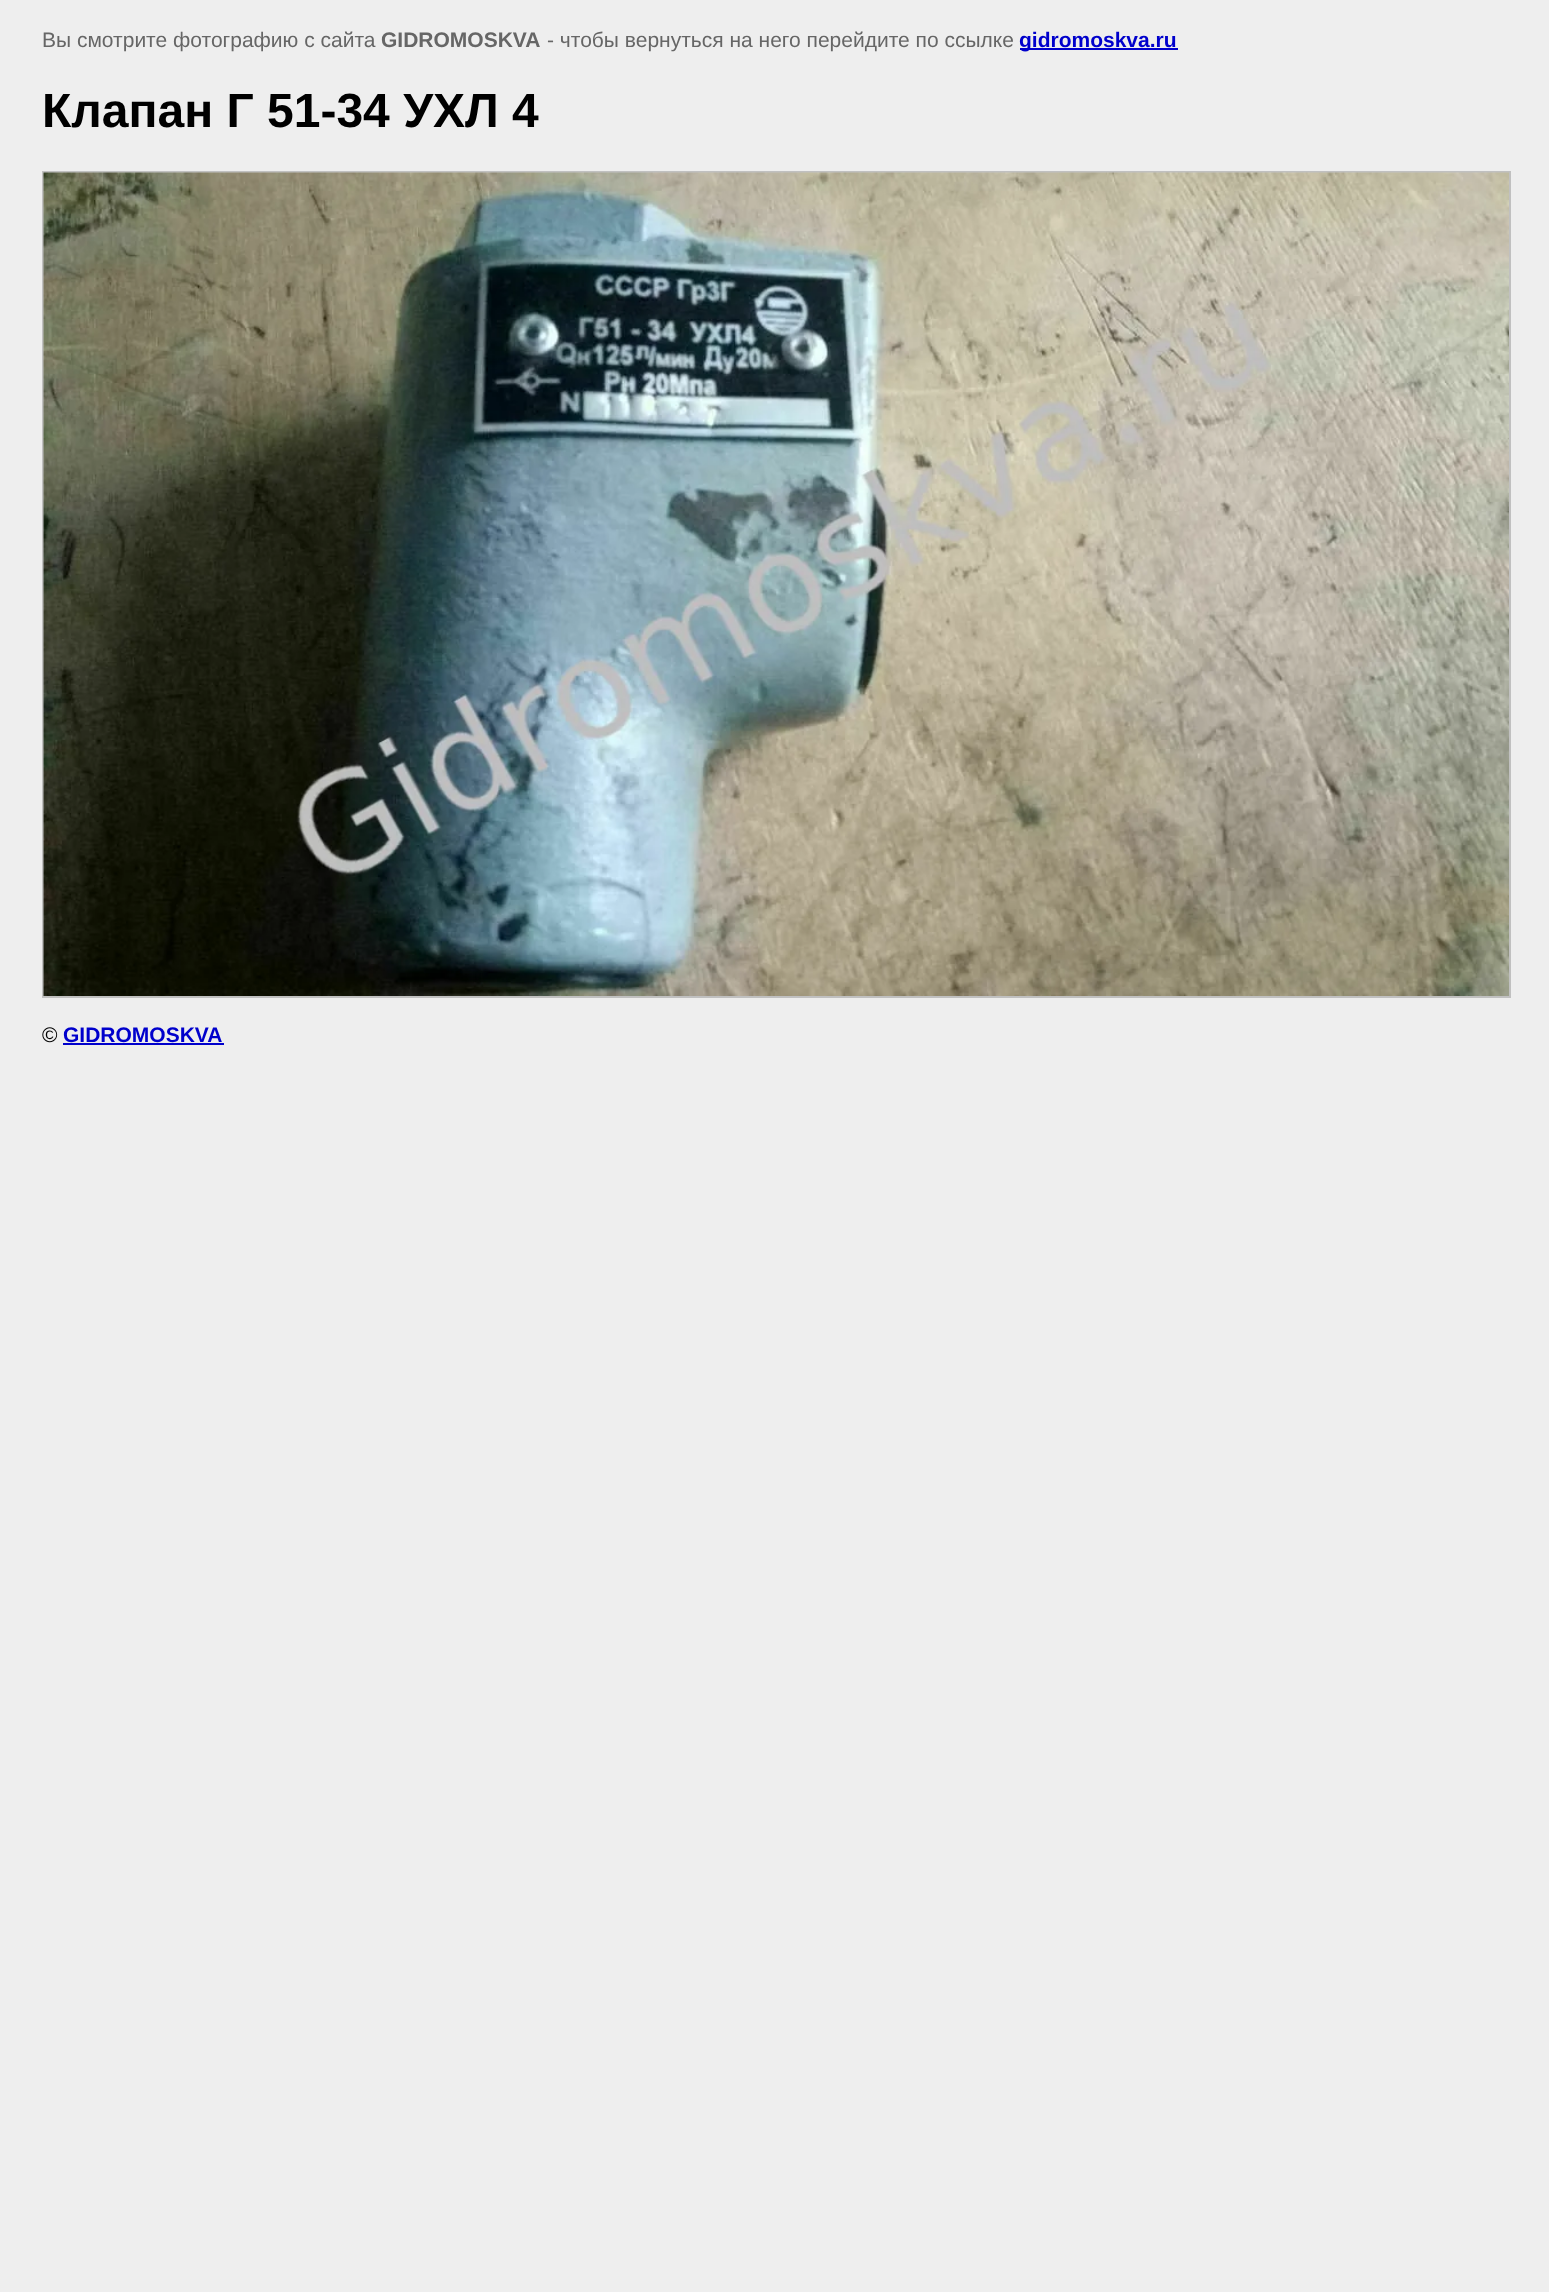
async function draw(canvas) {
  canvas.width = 1549
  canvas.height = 2292
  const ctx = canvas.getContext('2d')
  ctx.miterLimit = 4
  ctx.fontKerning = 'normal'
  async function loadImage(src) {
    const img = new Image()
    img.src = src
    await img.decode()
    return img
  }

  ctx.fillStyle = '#eee'
  ctx.fillRect(0, 0, 1549, 2292)
  ctx.font = '21px Liberation Sans'
  ctx.fillStyle = '#666'
  ctx.fillText('Вы смотрите фотографию с сайта', 42, 47)
  ctx.font = 'bold 21px Liberation Sans'
  ctx.fillText('GIDROMOSKVA', 381, 47)
  ctx.font = '21px Liberation Sans'
  ctx.fillText('- чтобы вернуться на него перейдите по ссылке', 547, 47)
  ctx.fillStyle = '#00c'
  ctx.fillRect(1020, 48, 158, 2)
  ctx.font = 'bold 21px Liberation Sans'
  ctx.fillText('gidromoskva.ru', 1019, 47)
  ctx.font = 'bold 48px Liberation Sans'
  ctx.fillStyle = '#000'
  ctx.fillText('Клапан Г 51-34 УХЛ 4', 42, 127)
  ctx.strokeStyle = '#c0c0c0'
  ctx.lineWidth = 2
  ctx.strokeRect(43, 172, 1467, 825)
  ctx.drawImage(await loadImage('image0.png'), 43, 172, 1466, 824)
  ctx.font = '21px Liberation Sans'
  ctx.fillText('©', 42, 1042)
  ctx.font = 'bold 21px Liberation Sans'
  ctx.fillStyle = '#00c'
  ctx.fillText('GIDROMOSKVA', 63, 1042)
  ctx.fillRect(63, 1043, 161, 2)
}

draw(document.querySelector('canvas'))
